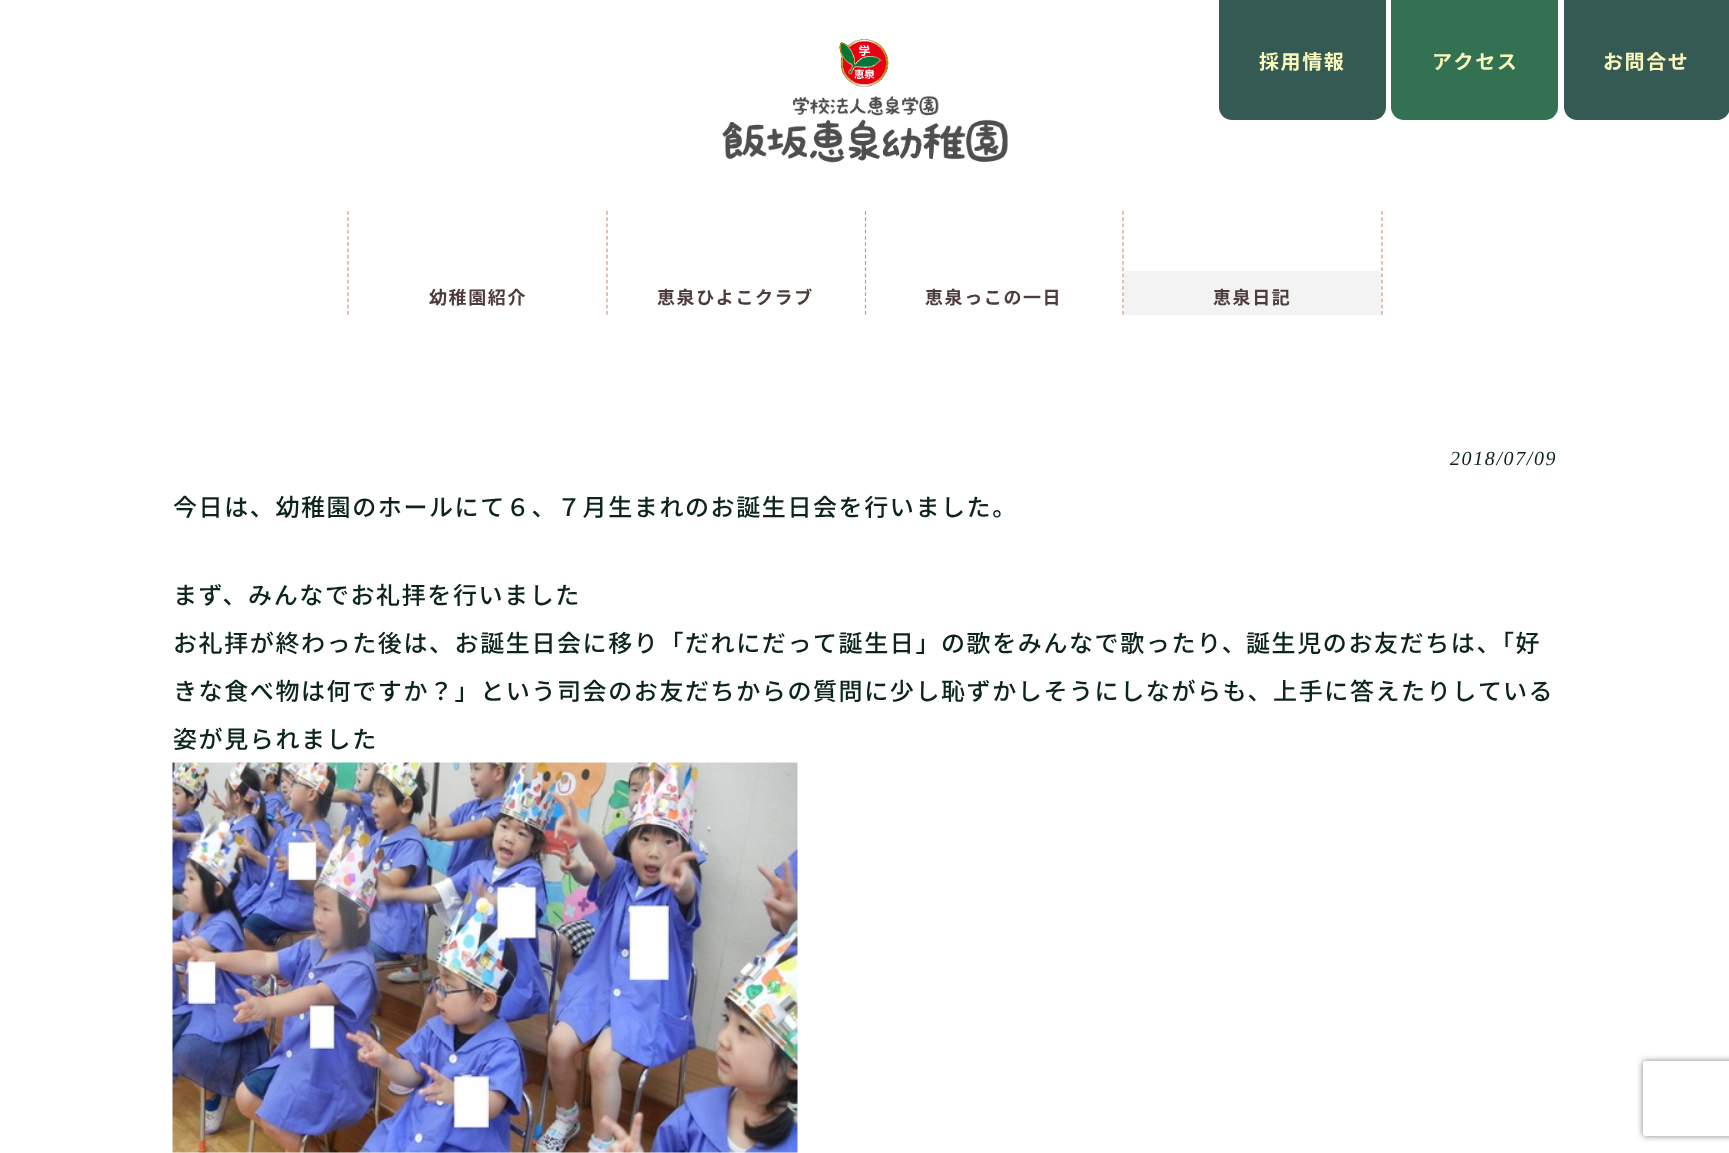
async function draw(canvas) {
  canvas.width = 1729
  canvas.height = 1153
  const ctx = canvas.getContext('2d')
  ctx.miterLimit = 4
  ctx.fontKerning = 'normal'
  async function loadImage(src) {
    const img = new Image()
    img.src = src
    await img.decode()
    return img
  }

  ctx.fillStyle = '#fff'
  ctx.fillRect(0, 0, 1729, 1153)
  ctx.drawImage(await loadImage('image0.png'), 722, 39, 286, 124)
  ctx.fillStyle = '#345a53'
  ctx.beginPath()
  ctx.roundRect(1219, 0, 167, 120, [0, 0, 13, 13])
  ctx.fill()
  ctx.letterSpacing = '1.6px'
  ctx.font = 'bold 20px Noto Sans JP'
  ctx.fillStyle = '#f9f7bc'
  ctx.fillText('採用情報', 1259, 69)
  ctx.fillStyle = '#337153'
  ctx.beginPath()
  ctx.roundRect(1391, 0, 167, 120, [0, 0, 13, 13])
  ctx.fill()
  ctx.fillStyle = '#f9f7bc'
  ctx.fillText('アクセス', 1432, 69)
  ctx.fillStyle = '#345a53'
  ctx.beginPath()
  ctx.moveTo(1564, 0)
  ctx.lineTo(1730, 0)
  ctx.lineTo(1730, 107)
  ctx.bezierCurveTo(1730, 114, 1724, 120, 1717, 120)
  ctx.lineTo(1577, 120)
  ctx.bezierCurveTo(1570, 120, 1564, 114, 1564, 107)
  ctx.closePath()
  ctx.fill()
  ctx.fillStyle = '#f9f7bc'
  ctx.fillText('お問合せ', 1603, 69)
  ctx.beginPath()
  ctx.moveTo(607, 211)
  ctx.lineTo(607, 315)
  ctx.strokeStyle = '#c79c7e'
  ctx.lineWidth = 1.2
  ctx.setLineDash([3.75, 2.5])
  ctx.stroke()
  ctx.beginPath()
  ctx.moveTo(348, 211)
  ctx.lineTo(348, 315)
  ctx.stroke()
  ctx.font = 'bold 18px Noto Sans JP'
  ctx.fillStyle = '#4e3c3c'
  ctx.fillText('幼稚園紹介', 429, 304)
  ctx.beginPath()
  ctx.moveTo(865.5, 211)
  ctx.lineTo(865.5, 315)
  ctx.stroke()
  ctx.fillText('恵泉ひよこクラブ', 657, 304)
  ctx.beginPath()
  ctx.moveTo(1123, 211)
  ctx.lineTo(1123, 315)
  ctx.stroke()
  ctx.fillText('恵泉っこの一日', 925, 304)
  ctx.beginPath()
  ctx.moveTo(1382, 211)
  ctx.lineTo(1382, 315)
  ctx.stroke()
  ctx.fillStyle = '#f3f3f3'
  ctx.fillRect(1124, 271, 257, 44)
  ctx.fillStyle = '#4e3c3c'
  ctx.fillText('恵泉日記', 1213, 304)
  ctx.font = 'italic 20px Liberation Serif'
  ctx.fillStyle = '#0b241c'
  ctx.fillText('2018/07/09', 1450, 465)
  ctx.font = '500 24px Noto Sans JP'
  ctx.fillText('今日は、幼稚園のホールにて６、７月生まれのお誕生日会を行いました。', 173, 516)
  ctx.fillText('まず、みんなでお礼拝を行いました', 173, 604)
  ctx.fillText('お礼拝が終わった後は、お誕生日会に移り「だれにだって誕生日」の歌をみんなで歌ったり、', 173, 652)
  ctx.fillText('誕生児のお友だちは、「好', 1246, 652)
  ctx.fillText('きな食べ物は何ですか？」という司会のお友だちからの', 173, 700)
  ctx.fillText('質問に少し恥ずかしそうにしながらも、上手に答えたりして', 813, 700)
  ctx.fillText('いる', 1503, 700)
  ctx.fillText('姿が見られました', 173, 748)
  ctx.drawImage(await loadImage('image1.png'), 172, 762, 626, 391)
  ctx.save()
  ctx.beginPath()
  ctx.moveTo(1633, 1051)
  ctx.lineTo(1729, 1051)
  ctx.lineTo(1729, 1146)
  ctx.lineTo(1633, 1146)
  ctx.closePath()
  ctx.moveTo(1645.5, 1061)
  ctx.lineTo(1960.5, 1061)
  ctx.bezierCurveTo(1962, 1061, 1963, 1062, 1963, 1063.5)
  ctx.lineTo(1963, 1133.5)
  ctx.bezierCurveTo(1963, 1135, 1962, 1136, 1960.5, 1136)
  ctx.lineTo(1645.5, 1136)
  ctx.bezierCurveTo(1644, 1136, 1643, 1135, 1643, 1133.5)
  ctx.lineTo(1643, 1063.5)
  ctx.bezierCurveTo(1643, 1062, 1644, 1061, 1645.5, 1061)
  ctx.closePath()
  ctx.clip('evenodd')
  ctx.fillStyle = '#808080'
  ctx.filter = 'blur(3px)'
  ctx.beginPath()
  ctx.roundRect(1643, 1061, 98, 75, 2.5)
  ctx.fill()
  ctx.filter = 'none'
  ctx.restore()
}

draw(document.querySelector('canvas'))
